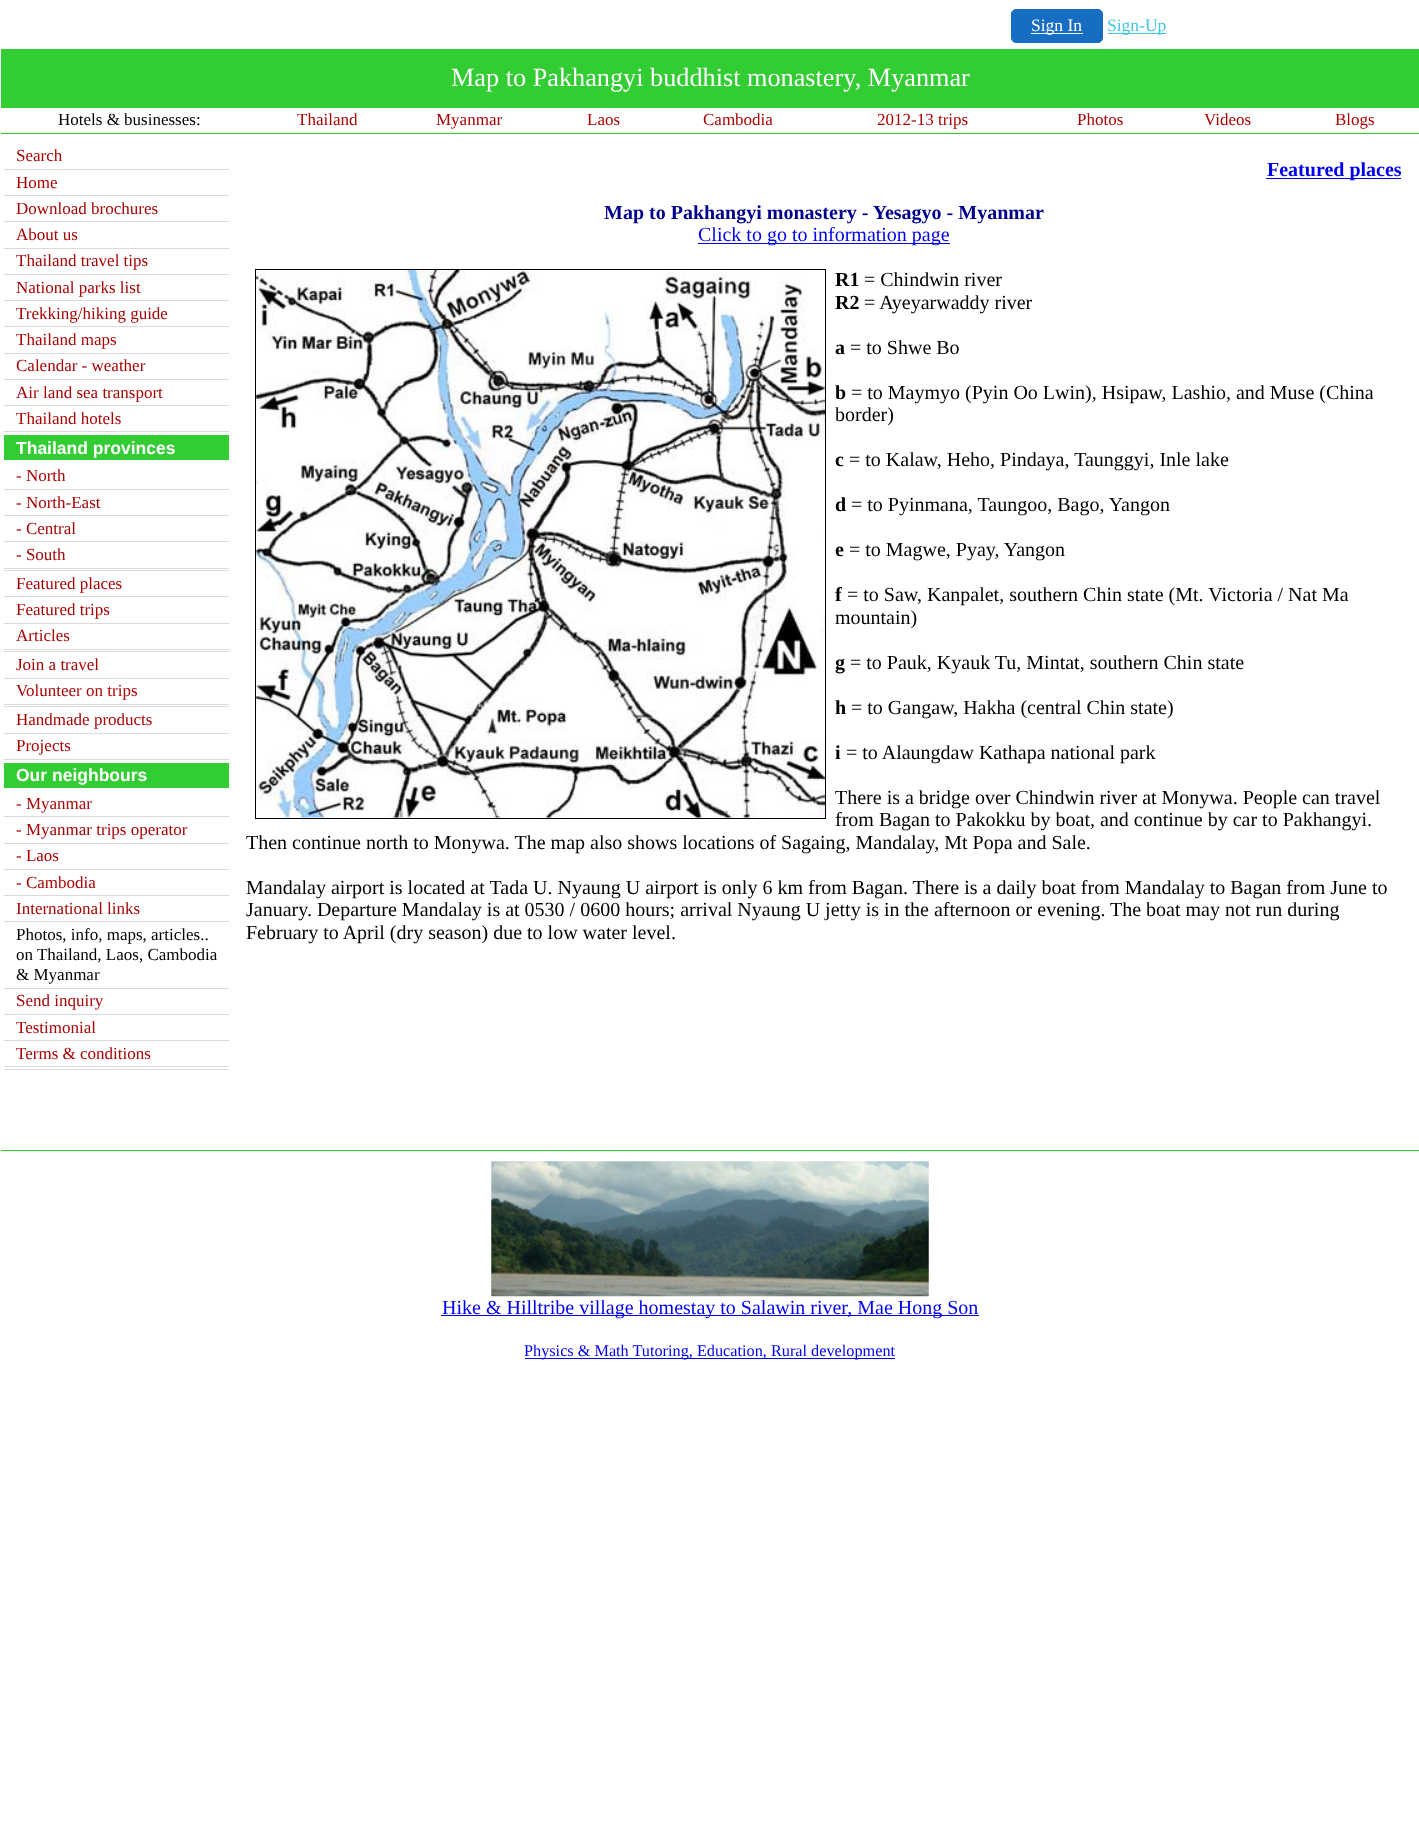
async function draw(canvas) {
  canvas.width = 1419
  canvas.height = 1827
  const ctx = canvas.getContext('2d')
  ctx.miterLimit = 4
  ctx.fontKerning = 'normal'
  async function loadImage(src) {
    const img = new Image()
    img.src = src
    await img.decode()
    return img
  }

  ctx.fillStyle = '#fff'
  ctx.fillRect(0, 0, 1419, 1827)
  ctx.fillStyle = '#166dc2'
  ctx.beginPath()
  ctx.roundRect(1011.5, 9.5, 91, 33, 4.5)
  ctx.fill()
  ctx.strokeStyle = '#166dc2'
  ctx.stroke()
  ctx.fillStyle = '#fff'
  ctx.fillRect(1031, 33, 52, 1)
  ctx.font = '17.5px Liberation Serif'
  ctx.fillText('Sign In', 1031, 31)
  ctx.fillStyle = '#41c5e4'
  ctx.fillRect(1108, 33, 58, 1)
  ctx.fillText('Sign-Up', 1107, 31)
  ctx.fillStyle = '#32cd32'
  ctx.fillRect(1, 49, 1418, 59)
  ctx.font = '26.25px Liberation Serif'
  ctx.fillStyle = '#fff'
  ctx.fillText('Map to Pakhangyi buddhist monastery, Myanmar', 451, 86)
  ctx.fillStyle = '#32cd32'
  ctx.fillRect(1, 133, 1418, 1)
  ctx.font = '17px Liberation Serif'
  ctx.fillStyle = '#000'
  ctx.fillText('Hotels & businesses:', 58, 125)
  ctx.fillStyle = '#a70303'
  ctx.fillText('Thailand', 297, 125)
  ctx.fillText('Myanmar', 436, 125)
  ctx.fillText('Laos', 587, 125)
  ctx.fillText('Cambodia', 703, 125)
  ctx.fillText('2012-13 trips', 877, 125)
  ctx.fillText('Photos', 1077, 125)
  ctx.fillText('Videos', 1204, 125)
  ctx.fillText('Blogs', 1335, 125)
  ctx.fillStyle = '#d9d9d9'
  ctx.fillRect(4, 169, 225, 1)
  ctx.fillStyle = '#a70303'
  ctx.fillText('Search', 16, 161)
  ctx.fillStyle = '#d9d9d9'
  ctx.fillRect(4, 195, 225, 1)
  ctx.fillStyle = '#a70303'
  ctx.fillText('Home', 16, 188)
  ctx.fillStyle = '#d9d9d9'
  ctx.fillRect(4, 221, 225, 1)
  ctx.fillStyle = '#a70303'
  ctx.fillText('Download brochures', 16, 214)
  ctx.fillStyle = '#d9d9d9'
  ctx.fillRect(4, 248, 225, 1)
  ctx.fillStyle = '#a70303'
  ctx.fillText('About us', 16, 240)
  ctx.fillStyle = '#d9d9d9'
  ctx.fillRect(4, 274, 225, 1)
  ctx.fillStyle = '#a70303'
  ctx.fillText('Thailand travel tips', 16, 266)
  ctx.fillStyle = '#d9d9d9'
  ctx.fillRect(4, 300, 225, 1)
  ctx.fillStyle = '#a70303'
  ctx.fillText('National parks list', 16, 293)
  ctx.fillStyle = '#d9d9d9'
  ctx.fillRect(4, 326, 225, 1)
  ctx.fillStyle = '#a70303'
  ctx.fillText('Trekking/hiking guide', 16, 319)
  ctx.fillStyle = '#d9d9d9'
  ctx.fillRect(4, 353, 225, 1)
  ctx.fillStyle = '#a70303'
  ctx.fillText('Thailand maps', 16, 345)
  ctx.fillStyle = '#d9d9d9'
  ctx.fillRect(4, 379, 225, 1)
  ctx.fillStyle = '#a70303'
  ctx.fillText('Calendar - weather', 16, 371)
  ctx.fillStyle = '#d9d9d9'
  ctx.fillRect(4, 405, 225, 1)
  ctx.fillStyle = '#a70303'
  ctx.fillText('Air land sea transport', 16, 398)
  ctx.fillStyle = '#d9d9d9'
  ctx.fillRect(4, 431, 225, 1)
  ctx.fillStyle = '#a70303'
  ctx.fillText('Thailand hotels', 16, 424)
  ctx.fillStyle = '#32cd32'
  ctx.fillRect(4, 435, 225, 25)
  ctx.font = 'bold 17.5px Liberation Sans'
  ctx.fillStyle = '#fff'
  ctx.fillText('Thailand provinces', 16, 454)
  ctx.fillStyle = '#d9d9d9'
  ctx.fillRect(4, 489, 225, 1)
  ctx.font = '17px Liberation Serif'
  ctx.fillStyle = '#a70303'
  ctx.fillText('- North', 16, 481)
  ctx.fillStyle = '#d9d9d9'
  ctx.fillRect(4, 515, 225, 1)
  ctx.fillStyle = '#a70303'
  ctx.fillText('- North-East', 16, 508)
  ctx.fillStyle = '#d9d9d9'
  ctx.fillRect(4, 541, 225, 1)
  ctx.fillStyle = '#a70303'
  ctx.fillText('- Central', 16, 534)
  ctx.fillStyle = '#d9d9d9'
  ctx.fillRect(4, 568, 225, 1)
  ctx.fillRect(4, 570, 225, 1)
  ctx.fillStyle = '#a70303'
  ctx.fillText('- South', 16, 560)
  ctx.fillStyle = '#d9d9d9'
  ctx.fillRect(4, 596, 225, 1)
  ctx.fillStyle = '#a70303'
  ctx.fillText('Featured places', 16, 589)
  ctx.fillStyle = '#d9d9d9'
  ctx.fillRect(4, 623, 225, 1)
  ctx.fillStyle = '#a70303'
  ctx.fillText('Featured trips', 16, 615)
  ctx.fillStyle = '#d9d9d9'
  ctx.fillRect(4, 649, 225, 1)
  ctx.fillRect(4, 651, 225, 1)
  ctx.fillStyle = '#a70303'
  ctx.fillText('Articles', 16, 641)
  ctx.fillStyle = '#d9d9d9'
  ctx.fillRect(4, 678, 225, 1)
  ctx.fillStyle = '#a70303'
  ctx.fillText('Join a travel', 16, 670)
  ctx.fillStyle = '#d9d9d9'
  ctx.fillRect(4, 704, 225, 1)
  ctx.fillRect(4, 706, 225, 1)
  ctx.fillStyle = '#a70303'
  ctx.fillText('Volunteer on trips', 16, 696)
  ctx.fillStyle = '#d9d9d9'
  ctx.fillRect(4, 733, 225, 1)
  ctx.fillStyle = '#a70303'
  ctx.fillText('Handmade products', 16, 725)
  ctx.fillStyle = '#d9d9d9'
  ctx.fillRect(4, 759, 225, 1)
  ctx.fillStyle = '#a70303'
  ctx.fillText('Projects', 16, 751)
  ctx.fillStyle = '#32cd32'
  ctx.fillRect(4, 763, 225, 25)
  ctx.font = 'bold 17.5px Liberation Sans'
  ctx.fillStyle = '#fff'
  ctx.fillText('Our neighbours', 16, 781)
  ctx.fillStyle = '#d9d9d9'
  ctx.fillRect(4, 816, 225, 1)
  ctx.font = '17px Liberation Serif'
  ctx.fillStyle = '#a70303'
  ctx.fillText('- Myanmar', 16, 809)
  ctx.fillStyle = '#d9d9d9'
  ctx.fillRect(4, 843, 225, 1)
  ctx.fillStyle = '#a70303'
  ctx.fillText('- Myanmar trips operator', 16, 835)
  ctx.fillStyle = '#d9d9d9'
  ctx.fillRect(4, 869, 225, 1)
  ctx.fillStyle = '#a70303'
  ctx.fillText('- Laos', 16, 861)
  ctx.fillStyle = '#d9d9d9'
  ctx.fillRect(4, 895, 225, 1)
  ctx.fillStyle = '#a70303'
  ctx.fillText('- Cambodia', 16, 888)
  ctx.fillStyle = '#d9d9d9'
  ctx.fillRect(4, 921, 225, 1)
  ctx.fillStyle = '#a70303'
  ctx.fillText('International links', 16, 914)
  ctx.fillStyle = '#d9d9d9'
  ctx.fillRect(4, 988, 225, 1)
  ctx.fillStyle = '#000'
  ctx.fillText('Photos, info, maps, articles..', 16, 940)
  ctx.fillText('on Thailand, Laos, Cambodia', 16, 960)
  ctx.fillText('& Myanmar', 16, 980)
  ctx.fillStyle = '#d9d9d9'
  ctx.fillRect(4, 1014, 225, 1)
  ctx.fillStyle = '#a70303'
  ctx.fillText('Send inquiry', 16, 1006)
  ctx.fillStyle = '#d9d9d9'
  ctx.fillRect(4, 1040, 225, 1)
  ctx.fillStyle = '#a70303'
  ctx.fillText('Testimonial', 16, 1033)
  ctx.fillStyle = '#d9d9d9'
  ctx.fillRect(4, 1066, 225, 1)
  ctx.fillRect(4, 1069, 225, 1)
  ctx.fillStyle = '#a70303'
  ctx.fillText('Terms & conditions', 16, 1059)
  ctx.fillStyle = '#00e'
  ctx.fillRect(1266, 178, 135, 1)
  ctx.font = 'bold 20px Liberation Serif'
  ctx.fillText('Featured places', 1267, 176)
  ctx.fillStyle = '#00008b'
  ctx.fillText('Map to Pakhangyi monastery - Yesagyo - Myanmar', 604, 219)
  ctx.fillStyle = '#00e'
  ctx.fillRect(698, 243, 252, 1)
  ctx.font = '20px Liberation Serif'
  ctx.fillText('Click to go to information page', 698, 241)
  ctx.strokeStyle = '#000'
  ctx.strokeRect(255.5, 269.5, 570, 549)
  ctx.drawImage(await loadImage('image0.png'), 256, 270, 569, 548)
  ctx.font = 'bold 20px Liberation Serif'
  ctx.fillStyle = '#000'
  ctx.fillText('R1', 835, 286)
  ctx.font = '20px Liberation Serif'
  ctx.fillText('= Chindwin river', 864, 286)
  ctx.font = 'bold 20px Liberation Serif'
  ctx.fillText('R2', 835, 309)
  ctx.font = '20px Liberation Serif'
  ctx.fillText('= Ayeyarwaddy river', 864, 309)
  ctx.font = 'bold 20px Liberation Serif'
  ctx.fillText('a', 835, 354)
  ctx.font = '20px Liberation Serif'
  ctx.fillText('= to Shwe Bo', 850, 354)
  ctx.font = 'bold 20px Liberation Serif'
  ctx.fillText('b', 835, 399)
  ctx.font = '20px Liberation Serif'
  ctx.fillText('= to Maymyo (Pyin Oo Lwin), Hsipaw, Lashio, and Muse (China', 851, 399)
  ctx.fillText('border)', 835, 421)
  ctx.font = 'bold 20px Liberation Serif'
  ctx.fillText('c', 835, 466)
  ctx.font = '20px Liberation Serif'
  ctx.fillText('= to Kalaw, Heho, Pindaya, Taunggyi, Inle lake', 849, 466)
  ctx.font = 'bold 20px Liberation Serif'
  ctx.fillText('d', 835, 511)
  ctx.font = '20px Liberation Serif'
  ctx.fillText('= to Pyinmana, Taungoo, Bago, Yangon', 851, 511)
  ctx.font = 'bold 20px Liberation Serif'
  ctx.fillText('e', 835, 556)
  ctx.font = '20px Liberation Serif'
  ctx.fillText('= to Magwe, Pyay, Yangon', 849, 556)
  ctx.font = 'bold 20px Liberation Serif'
  ctx.fillText('f', 835, 601)
  ctx.font = '20px Liberation Serif'
  ctx.fillText('= to Saw, Kanpalet, southern Chin state (Mt. Victoria / Nat Ma', 847, 601)
  ctx.fillText('mountain)', 835, 624)
  ctx.font = 'bold 20px Liberation Serif'
  ctx.fillText('g', 835, 669)
  ctx.font = '20px Liberation Serif'
  ctx.fillText('= to Pauk, Kyauk Tu, Mintat, southern Chin state', 850, 669)
  ctx.font = 'bold 20px Liberation Serif'
  ctx.fillText('h', 835, 714)
  ctx.font = '20px Liberation Serif'
  ctx.fillText('= to Gangaw, Hakha (central Chin state)', 851, 714)
  ctx.font = 'bold 20px Liberation Serif'
  ctx.fillText('i', 835, 759)
  ctx.font = '20px Liberation Serif'
  ctx.fillText('= to Alaungdaw Kathapa national park', 846, 759)
  ctx.fillText('There is a bridge over Chindwin river at Monywa. People can travel', 835, 804)
  ctx.fillText('from Bagan to Pakokku by boat, and continue by car to Pakhangyi.', 835, 826)
  ctx.fillText('Then continue north to Monywa. The map also shows locations of Sagaing, Mandalay, Mt Popa and Sale.', 246, 849)
  ctx.fillText('Mandalay airport is located at Tada U. Nyaung U airport is only 6 km from Bagan. There is a daily boat from Mandalay to Bagan from June to', 246, 894)
  ctx.fillText('January. Departure Mandalay is at 0530 / 0600 hours; arrival Nyaung U jetty is in the afternoon or evening.', 246, 916)
  ctx.fillText('The boat may not run during', 1110, 916)
  ctx.fillText('February to April (dry season) due to low water level.', 246, 939)
  ctx.fillStyle = '#32cd32'
  ctx.fillRect(1, 1150, 1418, 1)
  ctx.drawImage(await loadImage('image1.png'), 491, 1161, 438, 136)
  ctx.fillStyle = '#00e'
  ctx.fillRect(441, 1315, 538, 1)
  ctx.fillText('Hike & Hilltribe village homestay to Salawin river, Mae Hong Son', 442, 1314)
  ctx.fillRect(525, 1358, 370, 1)
  ctx.font = '16.25px Liberation Serif'
  ctx.fillText('Physics & Math Tutoring, Education, Rural development', 524, 1356)
}

draw(document.querySelector('canvas'))
